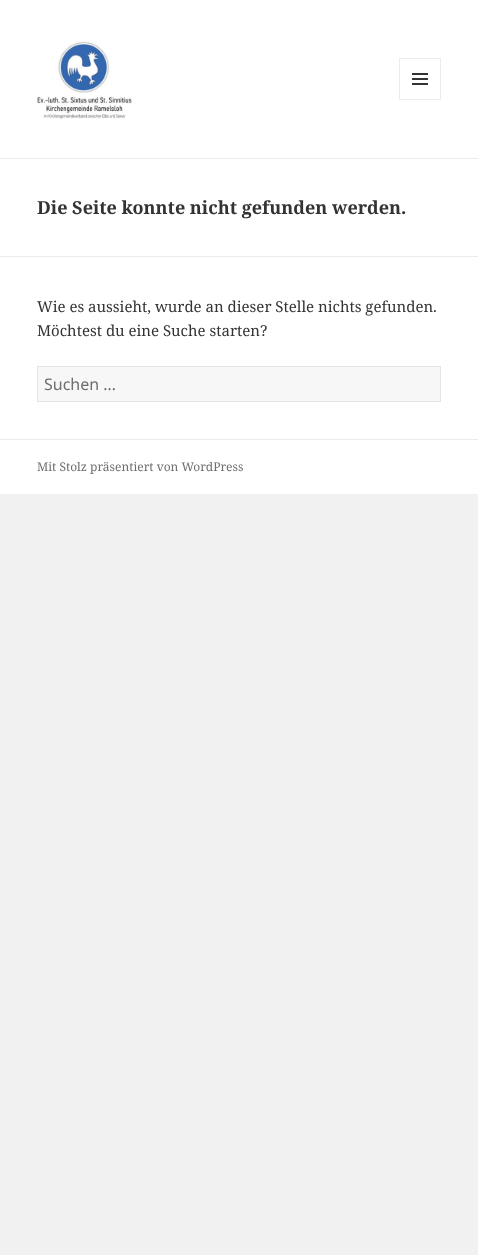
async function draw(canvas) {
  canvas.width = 478
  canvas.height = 1255
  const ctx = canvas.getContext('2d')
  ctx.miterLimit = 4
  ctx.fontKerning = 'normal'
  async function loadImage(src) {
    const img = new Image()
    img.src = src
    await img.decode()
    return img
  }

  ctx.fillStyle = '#f1f1f1'
  ctx.fillRect(0, 0, 478, 1255)
  ctx.fillStyle = '#fff'
  ctx.fillRect(0, 0, 478, 158)
  ctx.fillStyle = '#ebebeb'
  ctx.fillRect(0, 158, 478, 1)
  ctx.drawImage(await loadImage('image0.png'), 37, 41, 95, 78)
  ctx.strokeStyle = '#ebebeb'
  ctx.strokeRect(399.5, 58.5, 41, 41)
  ctx.drawImage(await loadImage('image1.png'), 412, 73, 16, 12)
  ctx.fillStyle = '#fff'
  ctx.fillRect(0, 159, 478, 97)
  ctx.fillStyle = '#ebebeb'
  ctx.fillRect(0, 256, 478, 1)
  ctx.font = 'bold 18px Noto Serif'
  ctx.fillStyle = '#333'
  ctx.fillText('Die Seite konnte nicht gefunden werden.', 37, 214)
  ctx.fillStyle = '#fff'
  ctx.fillRect(0, 257, 478, 182)
  ctx.font = '15px Noto Serif'
  ctx.fillStyle = '#333'
  ctx.fillText('Wie es aussieht, wurde an dieser Stelle nichts gefunden.', 37, 312)
  ctx.fillText('Möchtest du eine Suche starten?', 37, 336)
  ctx.fillStyle = '#f7f7f7'
  ctx.beginPath()
  ctx.rect(37.5, 366.5, 403, 35)
  ctx.fill()
  ctx.strokeStyle = '#e3e3e3'
  ctx.stroke()
  ctx.font = '16px Noto Sans'
  ctx.fillStyle = '#6e6e6e'
  ctx.fillText('Suchen …', 44, 390)
  ctx.fillStyle = '#fff'
  ctx.fillRect(0, 440, 478, 54)
  ctx.fillStyle = '#ebebeb'
  ctx.fillRect(0, 439, 478, 1)
  ctx.font = '12px Noto Serif'
  ctx.fillStyle = '#6e6e6e'
  ctx.fillText('Mit Stolz präsentiert von WordPress', 37, 471)
}

draw(document.querySelector('canvas'))
